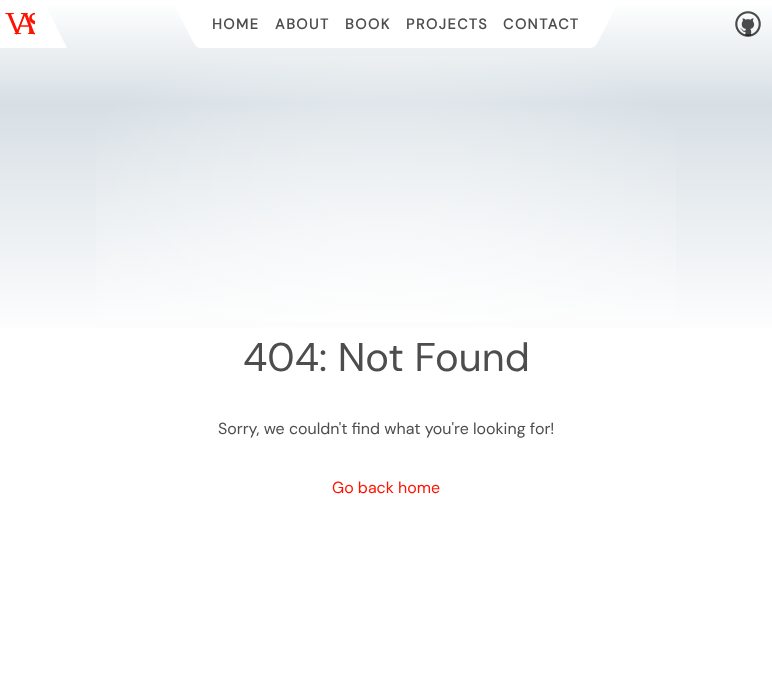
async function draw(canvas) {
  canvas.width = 772
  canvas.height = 687
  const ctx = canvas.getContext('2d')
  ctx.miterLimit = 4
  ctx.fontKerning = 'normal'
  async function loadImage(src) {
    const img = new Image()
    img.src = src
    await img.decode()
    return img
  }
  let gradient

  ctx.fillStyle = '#fff'
  ctx.fillRect(0, 0, 772, 687)
  gradient = ctx.createLinearGradient(386, 0, 386, 687)
  gradient.addColorStop(0, '#fff')
  gradient.addColorStop(0.15, '#d7dfe5')
  gradient.addColorStop(0.5, '#fff')
  ctx.fillStyle = gradient
  ctx.fillRect(0, 6, 772, 322)
  gradient = ctx.createRadialGradient(386, 386, 0, 386, 386, 386)
  gradient.addColorStop(0, '#ffffffbf')
  gradient.addColorStop(1, '#ffffff00')
  ctx.fillStyle = gradient
  ctx.beginPath()
  ctx.rect(96, 56, 580, 266)
  ctx.save()
  ctx.clip()
  ctx.scale(1, 344 / 386)
  ctx.fillRect(0, 0, 772, 771)
  ctx.restore()
  ctx.fillStyle = '#fff'
  ctx.fillRect(0, 6, 35, 42)
  ctx.letterSpacing = '-10px'
  ctx.font = '32px Liberation Serif'
  ctx.fillStyle = '#ff1300'
  ctx.fillText('VAS', 5, 34)
  ctx.fillStyle = '#fff'
  ctx.beginPath()
  ctx.moveTo(35, 48)
  ctx.lineTo(35, 0)
  ctx.bezierCurveTo(43, 0, 43, 0, 51, 16)
  ctx.lineTo(67, 48)
  ctx.closePath()
  ctx.fill()
  ctx.beginPath()
  ctx.moveTo(172, 0)
  ctx.lineTo(188, 32)
  ctx.bezierCurveTo(196, 48, 196, 48, 204, 48)
  ctx.lineTo(204, 0)
  ctx.closePath()
  ctx.fill()
  ctx.fillRect(204, 6, 383, 42)
  ctx.letterSpacing = '1.5px'
  ctx.font = 'bold 14.5px DM Sans'
  ctx.fillStyle = '#4d4d4d'
  ctx.fillText('HOME', 212, 29)
  ctx.fillText('ABOUT', 275, 29)
  ctx.fillText('BOOK', 345, 29)
  ctx.fillText('PROJECTS', 406, 29)
  ctx.fillText('CONTACT', 503, 29)
  ctx.fillStyle = '#fff'
  ctx.beginPath()
  ctx.moveTo(587, 0)
  ctx.lineTo(587, 48)
  ctx.bezierCurveTo(595, 48, 595, 48, 603, 32)
  ctx.lineTo(619, 0)
  ctx.closePath()
  ctx.fill()
  ctx.drawImage(await loadImage('image0.png'), 735, 11, 26, 26)
  ctx.letterSpacing = '0px'
  ctx.font = '40px DM Sans'
  ctx.fillStyle = '#4d4d4d'
  ctx.fillText('404: Not Found', 243, 371)
  ctx.font = '16px DM Sans'
  ctx.fillText('Sorry, we couldn\'t find what you\'re looking for!', 218, 434)
  ctx.fillStyle = '#ff1300'
  ctx.fillText('Go back home', 332, 493)
}

draw(document.querySelector('canvas'))
